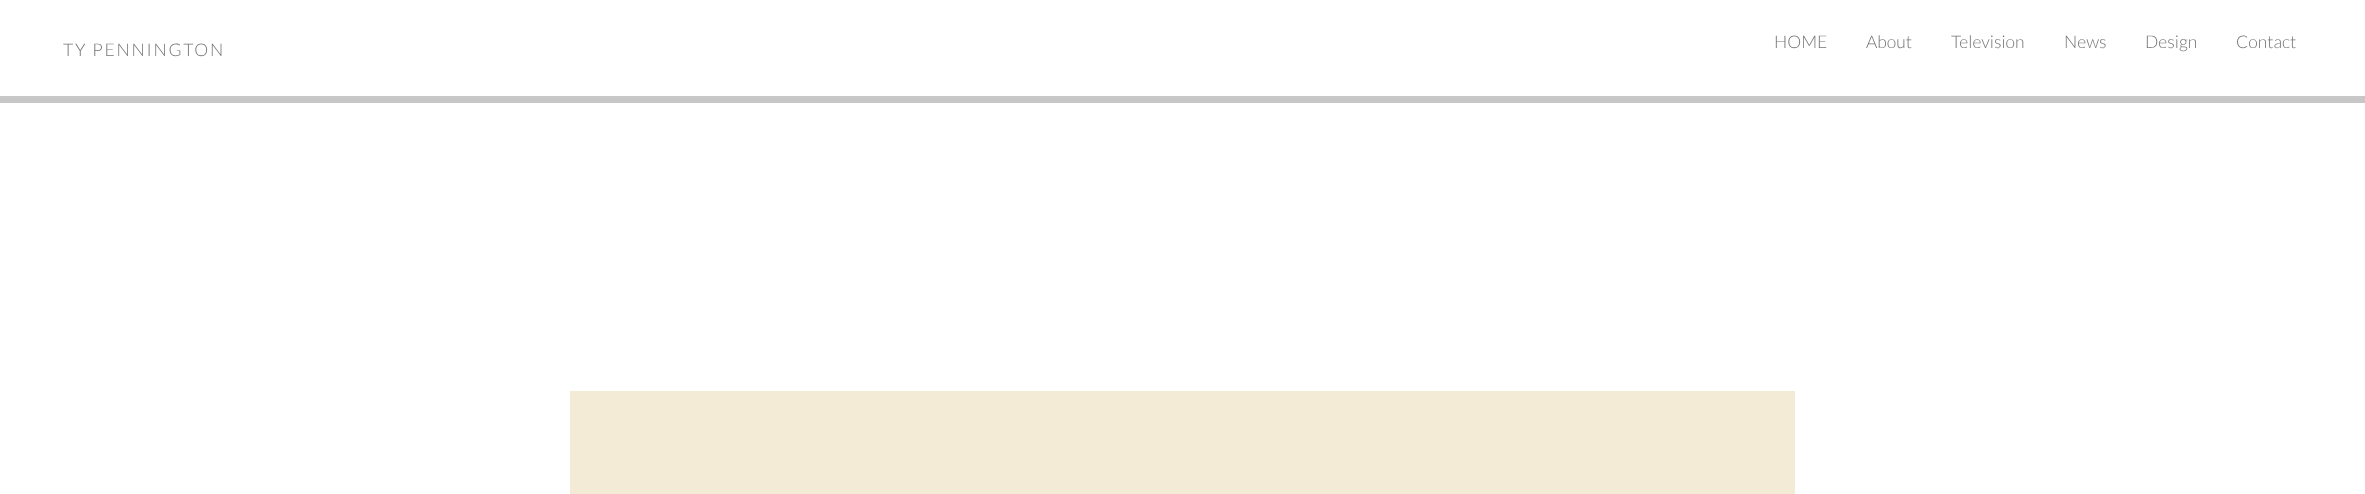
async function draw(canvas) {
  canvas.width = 2365
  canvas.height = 494
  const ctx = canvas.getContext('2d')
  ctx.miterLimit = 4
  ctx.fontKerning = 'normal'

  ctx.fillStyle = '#fff'
  ctx.fillRect(0, 0, 2365, 494)
  ctx.letterSpacing = '1.75px'
  ctx.font = '300 17.5px Lato'
  ctx.fillStyle = '#757575'
  ctx.fillText('TY PENNINGTON', 63, 56)
  ctx.letterSpacing = '0px'
  ctx.fillText('HOME', 1774, 48)
  ctx.fillText('About', 1866, 48)
  ctx.fillText('Television', 1951, 48)
  ctx.fillText('News', 2064, 48)
  ctx.fillText('Design', 2145, 48)
  ctx.fillText('Contact', 2236, 48)
  ctx.fillStyle = '#c7c7c7'
  ctx.fillRect(0, 96, 2365, 7)
  ctx.fillStyle = '#f4ebd7'
  ctx.fillRect(570, 391, 1225, 103)
}

draw(document.querySelector('canvas'))
